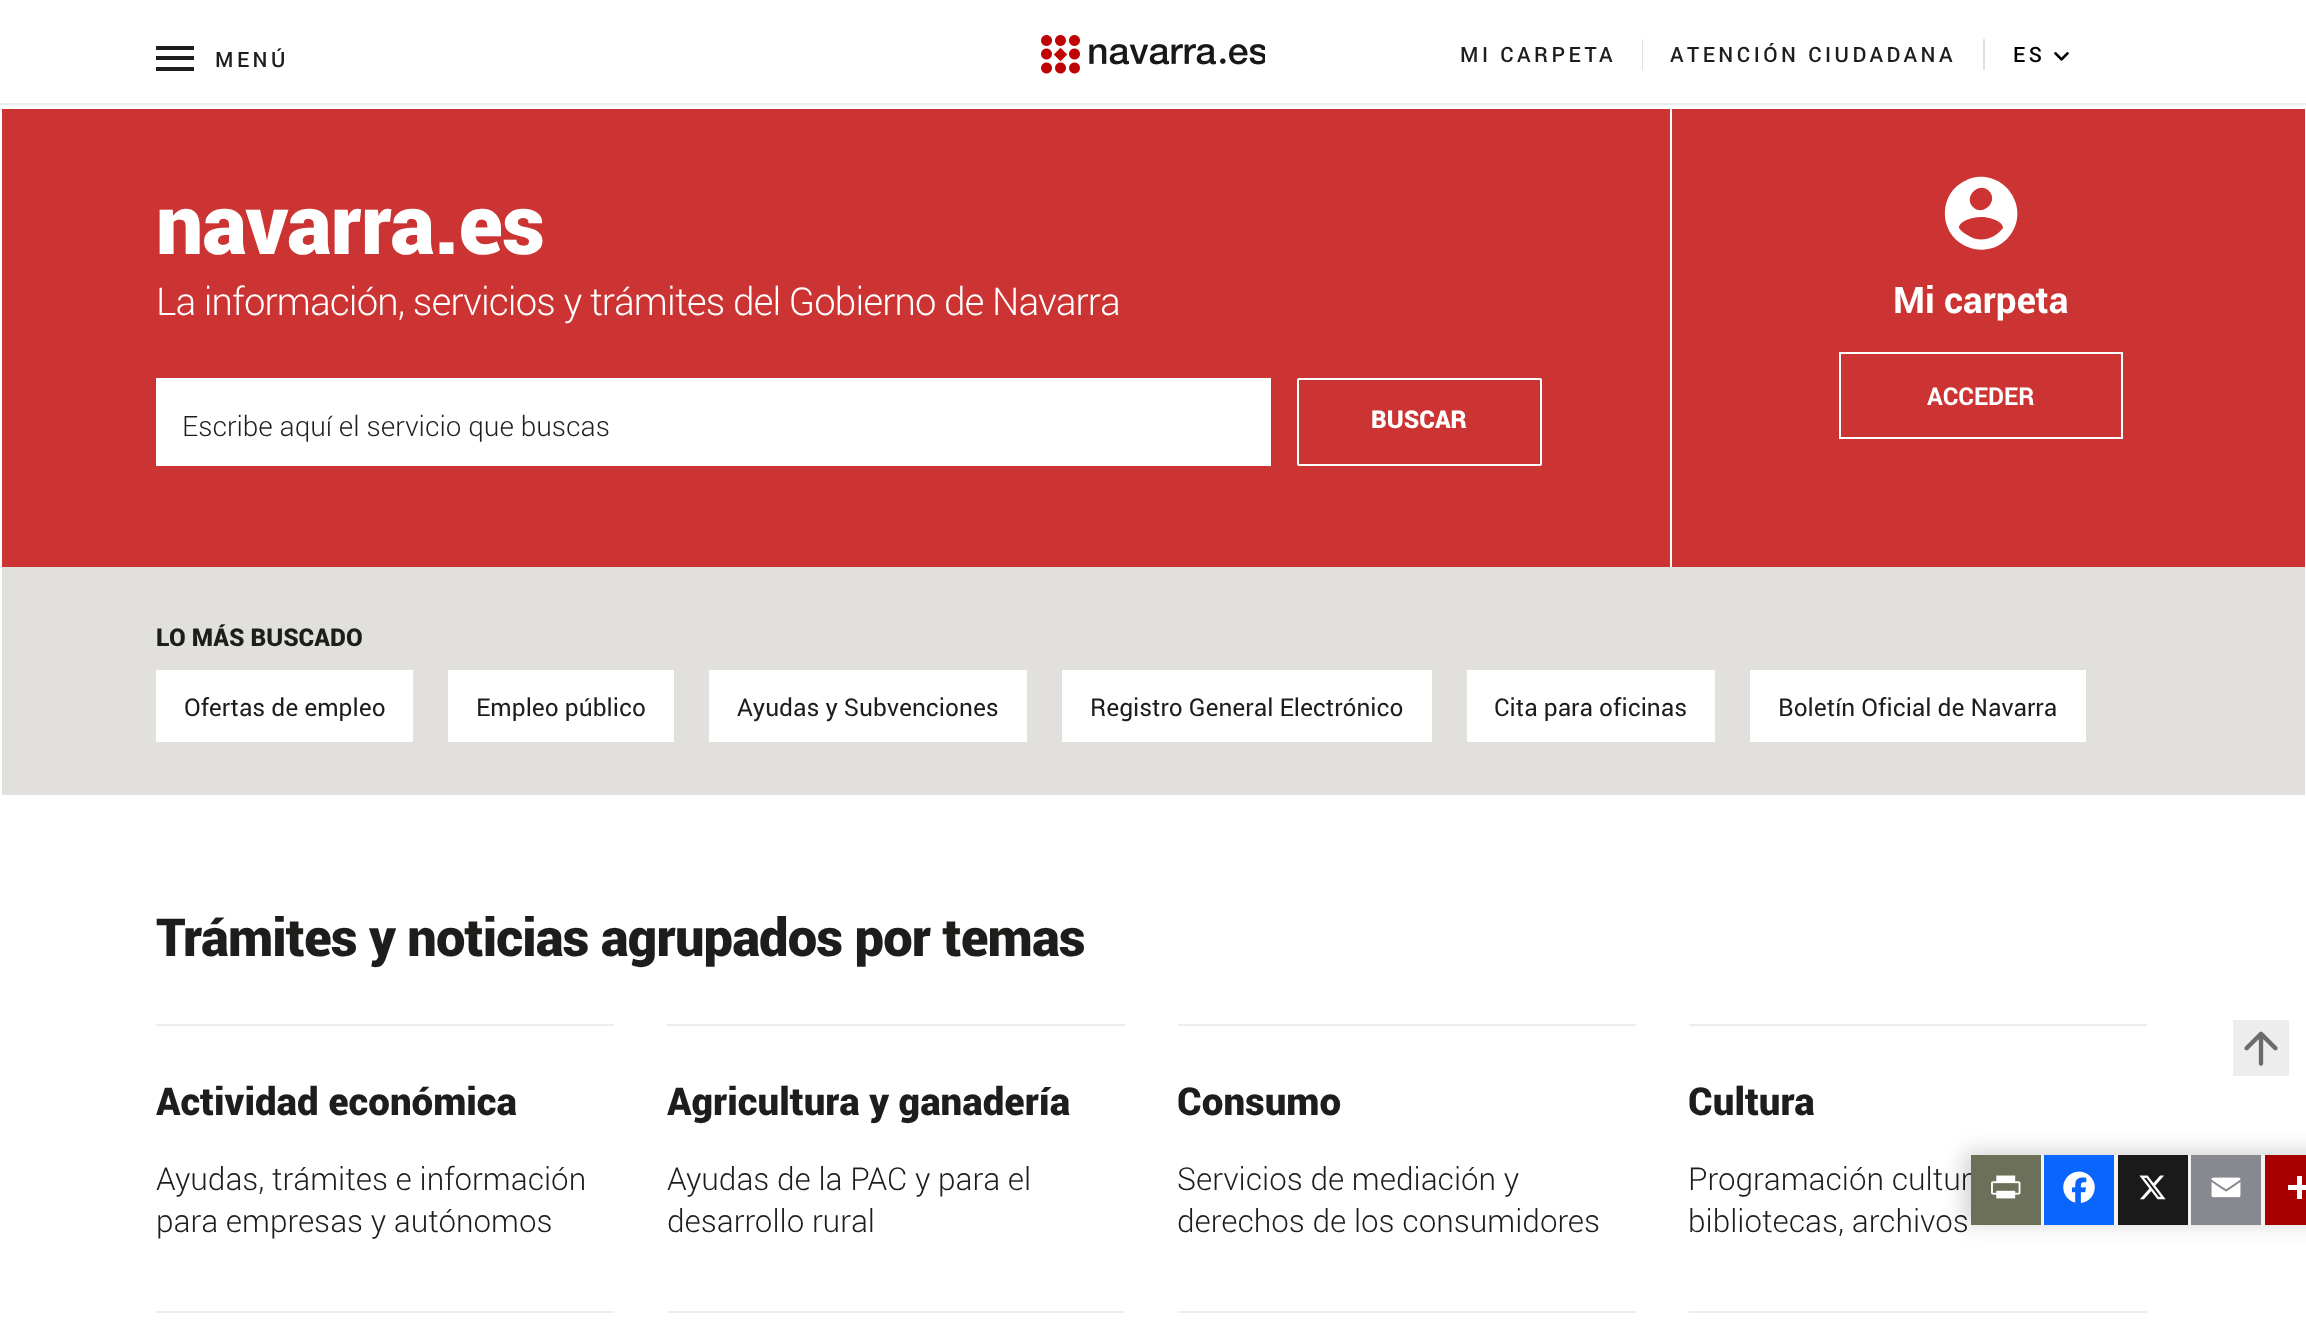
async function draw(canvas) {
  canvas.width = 2306
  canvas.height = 1321
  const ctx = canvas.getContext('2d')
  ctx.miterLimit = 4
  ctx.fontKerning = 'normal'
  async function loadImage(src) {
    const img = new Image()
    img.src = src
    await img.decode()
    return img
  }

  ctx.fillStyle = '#fff'
  ctx.fillRect(0, 0, 2306, 1321)
  ctx.fillStyle = '#1d1d1b'
  ctx.fillRect(156, 46, 38, 4)
  ctx.letterSpacing = '3.5px'
  ctx.font = '500 21px Roboto'
  ctx.fillText('MENÚ', 215, 67)
  ctx.fillRect(156, 56, 38, 4)
  ctx.fillRect(156, 67, 38, 4)
  ctx.drawImage(await loadImage('image0.png'), 1041, 35, 224, 39)
  ctx.fillStyle = '#e2e0dc'
  ctx.fillRect(1642, 39, 1, 31)
  ctx.fillStyle = '#1d1d1b'
  ctx.fillText('MI CARPETA', 1460, 62)
  ctx.fillStyle = '#e2e0dc'
  ctx.fillRect(1983, 39, 2, 31)
  ctx.fillStyle = '#1d1d1b'
  ctx.fillText('ATENCIÓN CIUDADANA', 1670, 62)
  ctx.fillStyle = '#000'
  ctx.fillText('ES', 2013, 62)
  ctx.drawImage(await loadImage('image1.png'), 2054, 52, 15, 9)
  ctx.fillStyle = '#ededed'
  ctx.fillRect(0, 103, 2306, 2)
  ctx.fillStyle = '#c33'
  ctx.fillRect(2, 109, 2303, 458)
  ctx.fillStyle = '#fff'
  ctx.fillRect(1670, 109, 2, 458)
  ctx.letterSpacing = '-0.88px'
  ctx.font = '900 84px Roboto'
  ctx.fillText('navarra.es', 156, 254)
  ctx.font = '300 38.5px Roboto'
  ctx.fillText('La información, servicios y trámites del Gobierno de Navarra', 156, 315)
  ctx.fillRect(156, 378, 1115, 88)
  ctx.letterSpacing = '0px'
  ctx.font = '300 28px Roboto'
  ctx.fillStyle = '#1d1d1b'
  ctx.fillText('Escribe aquí el servicio que buscas', 182, 436)
  ctx.beginPath()
  ctx.roundRect(1298, 379, 243, 86, 1)
  ctx.strokeStyle = '#fff'
  ctx.lineWidth = 2
  ctx.stroke()
  ctx.font = '900 24.5px Roboto'
  ctx.fillStyle = '#fff'
  ctx.fillText('BUSCAR', 1371, 428)
  ctx.beginPath()
  ctx.moveTo(1969, 236)
  ctx.bezierCurveTo(1980, 243, 1995, 239, 2003, 228)
  ctx.bezierCurveTo(2003, 220, 1987, 217, 1981, 217)
  ctx.bezierCurveTo(1975, 217, 1959, 220, 1959, 228)
  ctx.bezierCurveTo(1961, 231, 1965, 234, 1969, 236)
  ctx.closePath()
  ctx.moveTo(1989, 191)
  ctx.bezierCurveTo(1979, 181, 1963, 197, 1973, 207)
  ctx.bezierCurveTo(1983, 217, 1999, 201, 1989, 191)
  ctx.closePath()
  ctx.moveTo(1955, 188)
  ctx.bezierCurveTo(1961, 182, 1969, 178, 1977, 177)
  ctx.bezierCurveTo(2011, 174, 2031, 215, 2007, 239)
  ctx.bezierCurveTo(1983, 263, 1942, 244, 1945, 210)
  ctx.bezierCurveTo(1946, 201, 1949, 194, 1955, 188)
  ctx.closePath()
  ctx.fill()
  ctx.font = 'bold 36.75px Roboto'
  ctx.fillText('Mi carpeta', 1893, 313)
  ctx.strokeRect(1840, 353, 282, 85)
  ctx.font = 'bold 24.5px Roboto'
  ctx.fillText('ACCEDER', 1927, 405)
  ctx.fillStyle = '#e2e0dc'
  ctx.fillRect(2, 567, 2303, 228)
  ctx.font = '900 24.5px Roboto'
  ctx.fillStyle = '#1d1d1b'
  ctx.fillText('LO MÁS BUSCADO', 156, 646)
  ctx.fillStyle = '#fff'
  ctx.fillRect(156, 670, 257, 72)
  ctx.font = '24.5px Roboto'
  ctx.fillStyle = '#1d1d1b'
  ctx.fillText('Ofertas de empleo', 184, 716)
  ctx.fillStyle = '#fff'
  ctx.fillRect(448, 670, 226, 72)
  ctx.fillStyle = '#1d1d1b'
  ctx.fillText('Empleo público', 476, 716)
  ctx.fillStyle = '#fff'
  ctx.fillRect(709, 670, 318, 72)
  ctx.fillStyle = '#1d1d1b'
  ctx.fillText('Ayudas y Subvenciones', 737, 716)
  ctx.fillStyle = '#fff'
  ctx.fillRect(1062, 670, 370, 72)
  ctx.fillStyle = '#1d1d1b'
  ctx.fillText('Registro General Electrónico', 1090, 716)
  ctx.fillStyle = '#fff'
  ctx.fillRect(1467, 670, 248, 72)
  ctx.fillStyle = '#1d1d1b'
  ctx.fillText('Cita para oficinas', 1494, 716)
  ctx.fillStyle = '#fff'
  ctx.fillRect(1750, 670, 336, 72)
  ctx.fillStyle = '#1d1d1b'
  ctx.fillText('Boletín Oficial de Navarra', 1778, 716)
  ctx.letterSpacing = '-0.88px'
  ctx.font = '900 52.5px Roboto'
  ctx.fillText('Trámites y noticias agrupados por temas', 156, 956)
  ctx.fillStyle = '#ededed'
  ctx.fillRect(156, 1024, 458, 2)
  ctx.letterSpacing = '0px'
  ctx.font = '900 38.5px Roboto'
  ctx.fillStyle = '#1d1d1b'
  ctx.fillText('Actividad económica', 156, 1115)
  ctx.font = '300 31.5px Roboto'
  ctx.fillText('Ayudas, trámites e información', 156, 1190)
  ctx.fillText('para empresas y autónomos', 156, 1232)
  ctx.fillStyle = '#ededed'
  ctx.fillRect(667, 1024, 458, 2)
  ctx.font = '900 38.5px Roboto'
  ctx.fillStyle = '#1d1d1b'
  ctx.fillText('Agricultura y ganadería', 667, 1115)
  ctx.font = '300 31.5px Roboto'
  ctx.fillText('Ayudas de la PAC y para el', 667, 1190)
  ctx.fillText('desarrollo rural', 667, 1232)
  ctx.fillStyle = '#ededed'
  ctx.fillRect(1178, 1024, 458, 2)
  ctx.font = '900 38.5px Roboto'
  ctx.fillStyle = '#1d1d1b'
  ctx.fillText('Consumo', 1177, 1115)
  ctx.font = '300 31.5px Roboto'
  ctx.fillText('Servicios de mediación y', 1177, 1190)
  ctx.fillText('derechos de los consumidores', 1177, 1232)
  ctx.fillStyle = '#ededed'
  ctx.fillRect(1689, 1024, 458, 2)
  ctx.font = '900 38.5px Roboto'
  ctx.fillStyle = '#1d1d1b'
  ctx.fillText('Cultura', 1688, 1115)
  ctx.font = '300 31.5px Roboto'
  ctx.fillText('Programación cultur', 1688, 1190)
  ctx.fillText('bibliotecas, archivos', 1688, 1232)
  ctx.fillStyle = '#ededed'
  ctx.fillRect(156, 1311, 458, 2)
  ctx.fillRect(667, 1311, 458, 2)
  ctx.fillRect(1178, 1311, 458, 2)
  ctx.fillRect(1689, 1311, 458, 2)
  ctx.fillRect(2233, 1020, 56, 56)
  ctx.drawImage(await loadImage('image2.png'), 2244, 1031, 34, 35)
  ctx.fillStyle = '#0000002e'
  ctx.filter = 'blur(10.5px)'
  ctx.beginPath()
  ctx.rect(1964, 1152, 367, 71)
  ctx.fill()
  ctx.filter = 'none'
  ctx.fillStyle = '#6d7059'
  ctx.fillRect(1971, 1155, 70, 70)
  ctx.drawImage(await loadImage('image3.png'), 1991, 1175, 30, 24)
  ctx.fillStyle = '#f3f3f3'
  ctx.fillRect(2041, 1155, 3, 70)
  ctx.fillStyle = '#0866ff'
  ctx.fillRect(2044, 1155, 70, 70)
  ctx.drawImage(await loadImage('image4.png'), 2063, 1171, 32, 32)
  ctx.fillStyle = '#f3f3f3'
  ctx.fillRect(2114, 1155, 4, 70)
  ctx.fillStyle = '#1a1a1a'
  ctx.fillRect(2118, 1155, 70, 70)
  ctx.drawImage(await loadImage('image5.png'), 2139, 1175, 27, 25)
  ctx.fillStyle = '#f3f3f3'
  ctx.fillRect(2188, 1155, 3, 70)
  ctx.fillStyle = '#888990'
  ctx.fillRect(2191, 1155, 70, 70)
  ctx.drawImage(await loadImage('image6.png'), 2211, 1177, 30, 21)
  ctx.fillStyle = '#f3f3f3'
  ctx.fillRect(2261, 1155, 4, 70)
  ctx.fillStyle = '#a80000'
  ctx.fillRect(2265, 1155, 41, 70)
  ctx.fillStyle = '#fff'
  ctx.fillRect(2297, 1176, 5, 23)
  ctx.fillRect(2288, 1185, 18, 5)
}

draw(document.querySelector('canvas'))
